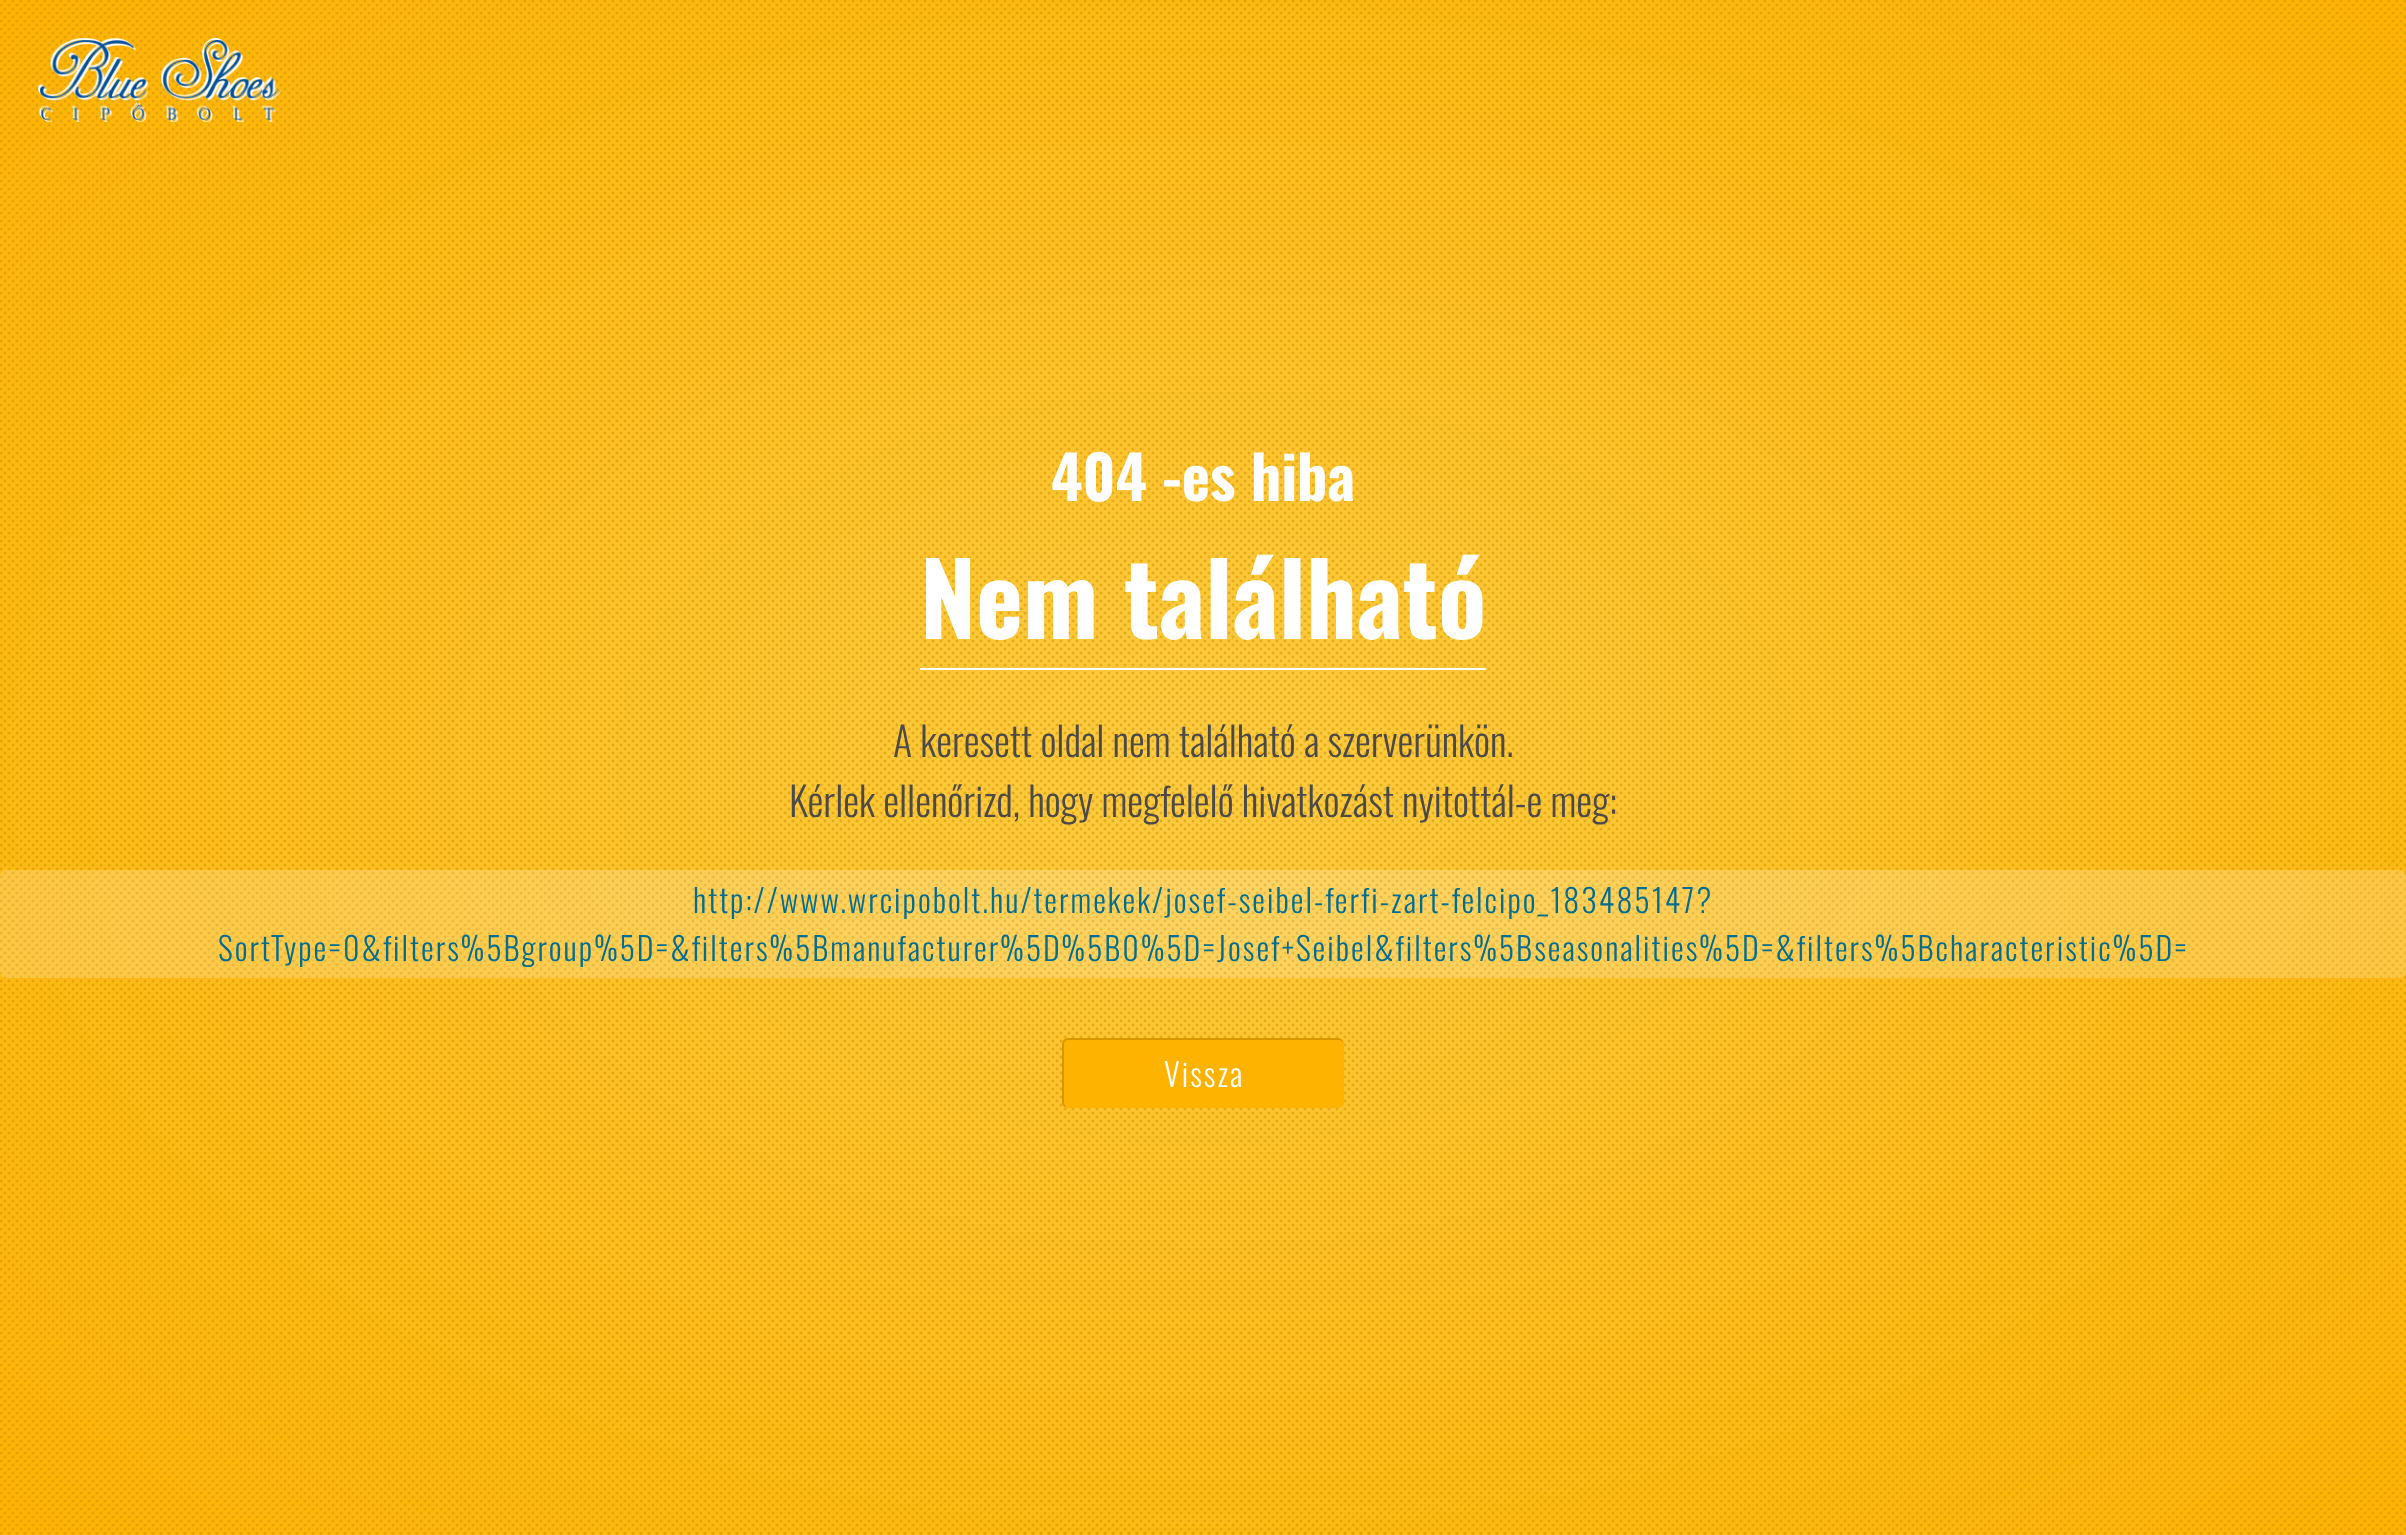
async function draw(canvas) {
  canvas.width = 2406
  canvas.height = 1535
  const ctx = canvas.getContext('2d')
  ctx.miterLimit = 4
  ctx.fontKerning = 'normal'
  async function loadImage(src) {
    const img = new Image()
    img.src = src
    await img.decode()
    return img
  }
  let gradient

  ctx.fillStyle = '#fff'
  ctx.fillRect(0, 0, 2406, 1535)
  gradient = ctx.createRadialGradient(1203, 1202.92, 0, 1203, 1202.92, 1701)
  gradient.addColorStop(0, '#fdcc43')
  gradient.addColorStop(1, '#feb300')
  ctx.fillStyle = gradient
  ctx.beginPath()
  ctx.rect(0, 0, 2406, 1535)
  ctx.save()
  ctx.clip()
  ctx.scale(1, 1086 / 1701)
  ctx.fillRect(0, 0, 2406, 2405)
  ctx.restore()
  ctx.drawImage(await loadImage('image0.png'), 0, 0, 2406, 1535)
  ctx.drawImage(await loadImage('image1.png'), 38, 38, 244, 84)
  ctx.font = 'bold 60px Oswald'
  ctx.fillStyle = '#fff'
  ctx.fillText('404 -es hiba', 1051, 501)
  ctx.fillRect(920, 668, 566, 2)
  ctx.font = 'bold 100px Oswald'
  ctx.fillText('Nem található', 920, 639)
  ctx.font = '300 40px Oswald'
  ctx.fillStyle = '#4a4a4a'
  ctx.fillText('A keresett oldal nem található a szerverünkön.', 893, 757)
  ctx.fillText('Kérlek ellenőrizd, hogy megfelelő hivatkozást nyitottál-e meg:', 789, 817)
  ctx.fillStyle = '#ffffff33'
  ctx.beginPath()
  ctx.roundRect(0, 870, 2406, 108, 6)
  ctx.fill()
  ctx.letterSpacing = '2px'
  ctx.font = '300 32px Oswald'
  ctx.fillStyle = '#006d91'
  ctx.fillText('http://www.wrcipobolt.hu/termekek/josef-seibel-ferfi-zart-felcipo_183485147?', 693, 913)
  ctx.fillText('SortType=0&filters%5Bgroup%5D=&filters%5Bmanufacturer%5D%5B0%5D=Josef+Seibel&filters%5Bseasonalities%5D=&filters%5Bcharacteristic%5D=', 218, 961)
  ctx.fillStyle = '#feb300'
  ctx.beginPath()
  ctx.roundRect(1062, 1038, 282, 70, 6)
  ctx.fill()
  ctx.fillStyle = '#d69700'
  ctx.beginPath()
  ctx.moveTo(1068, 1038)
  ctx.lineTo(1338, 1038)
  ctx.bezierCurveTo(1341, 1038, 1344, 1041, 1344, 1044)
  ctx.lineTo(1344, 1102)
  ctx.bezierCurveTo(1344, 1105, 1341, 1108, 1338, 1108)
  ctx.lineTo(1068, 1108)
  ctx.bezierCurveTo(1065, 1108, 1062, 1105, 1062, 1102)
  ctx.lineTo(1062, 1044)
  ctx.bezierCurveTo(1062, 1041, 1065, 1038, 1068, 1038)
  ctx.closePath()
  ctx.moveTo(1068, 1040)
  ctx.lineTo(1338, 1040)
  ctx.bezierCurveTo(1341, 1040, 1344, 1042, 1344, 1044)
  ctx.lineTo(1344, 1102)
  ctx.bezierCurveTo(1344, 1105, 1341, 1108, 1338, 1108)
  ctx.lineTo(1068, 1108)
  ctx.bezierCurveTo(1066, 1108, 1064, 1105, 1064, 1102)
  ctx.lineTo(1064, 1044)
  ctx.bezierCurveTo(1064, 1042, 1066, 1040, 1068, 1040)
  ctx.closePath()
  ctx.fill('evenodd')
  ctx.fillStyle = '#fff'
  ctx.fillText('Vissza', 1164, 1087)
}

draw(document.querySelector('canvas'))
